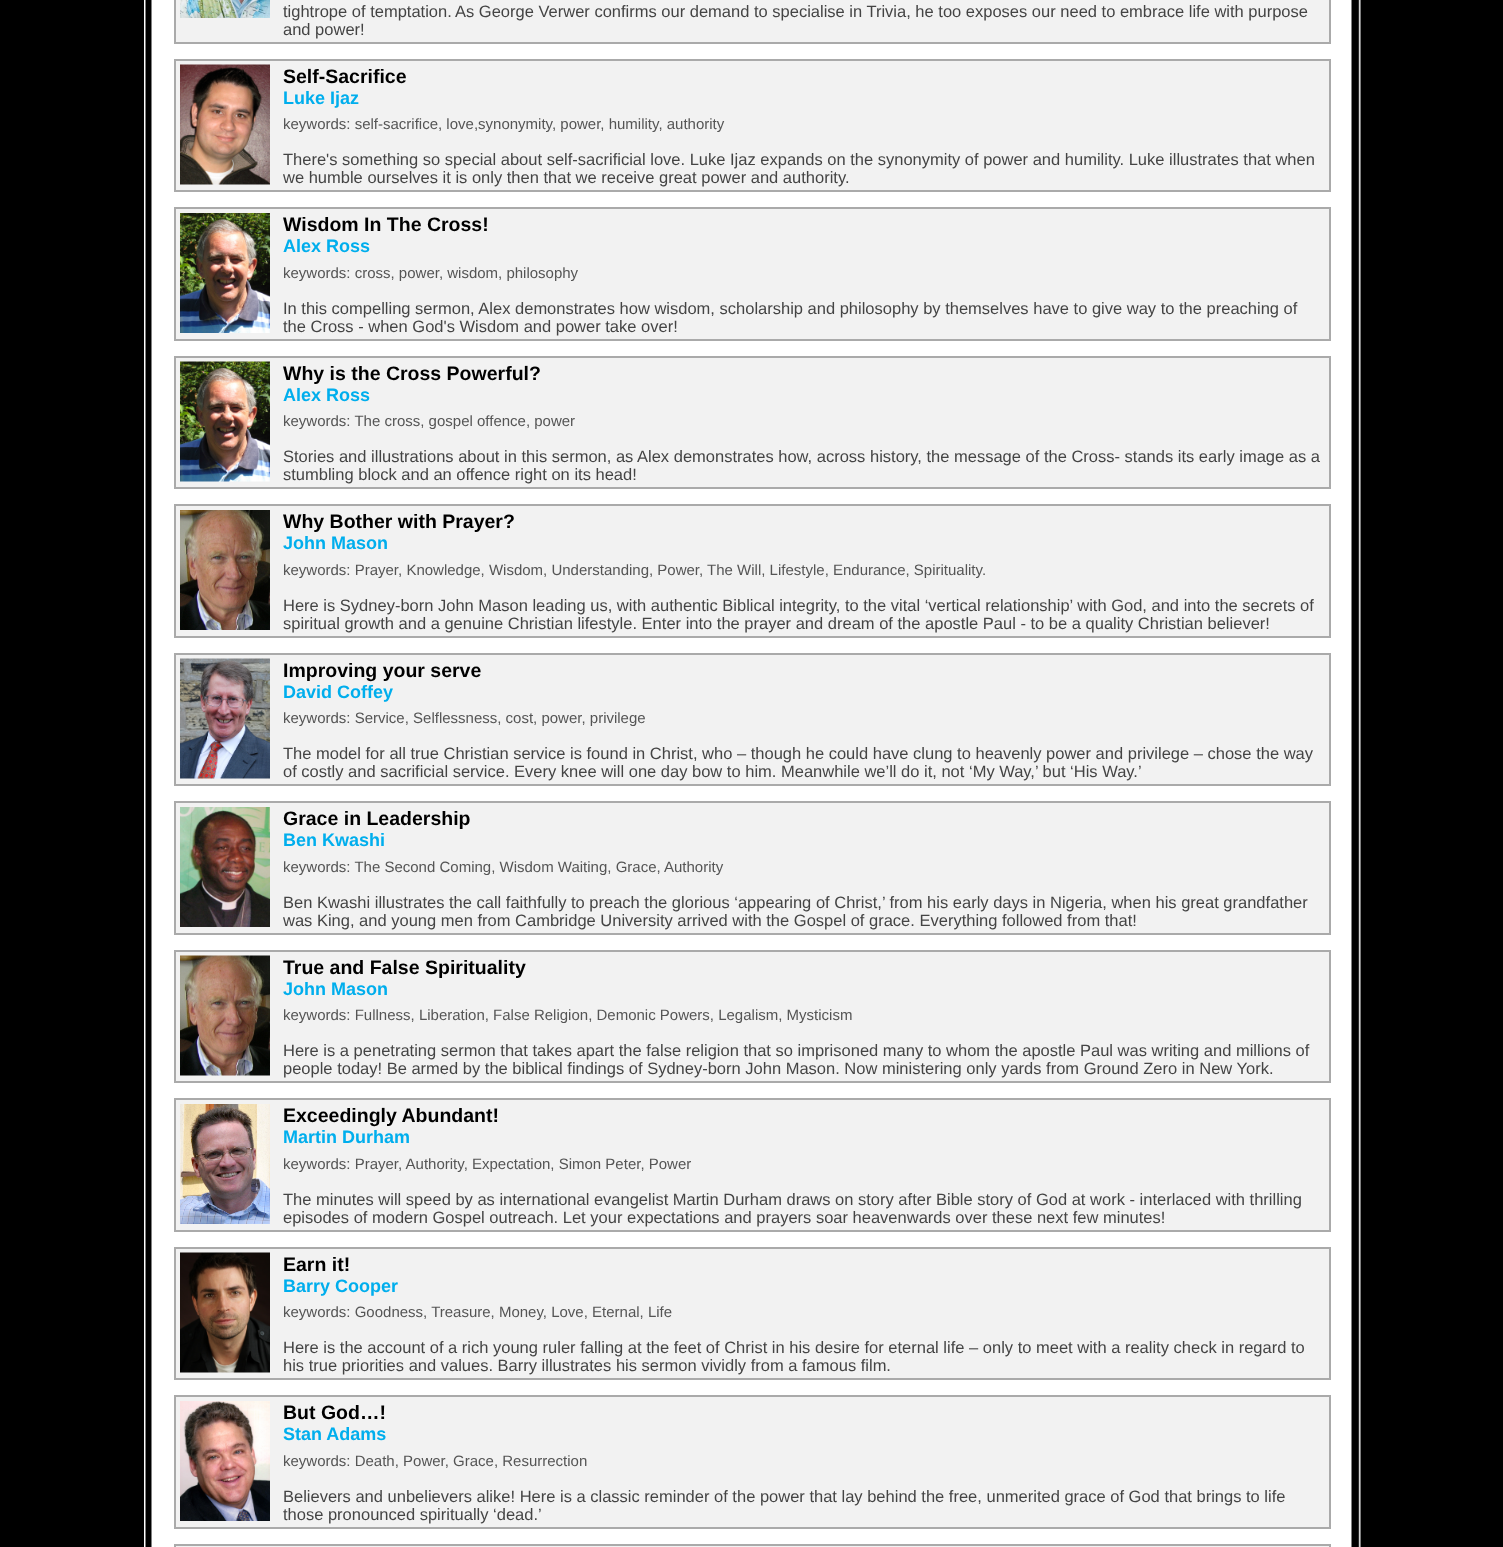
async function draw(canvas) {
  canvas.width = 1503
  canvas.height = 1547
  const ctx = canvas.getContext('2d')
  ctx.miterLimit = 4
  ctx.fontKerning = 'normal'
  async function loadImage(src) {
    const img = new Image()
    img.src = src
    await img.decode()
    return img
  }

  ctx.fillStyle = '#000'
  ctx.fillRect(0, 0, 1503, 1547)
  ctx.drawImage(await loadImage('image0.png'), 144, 0, 1217, 1547)
  ctx.fillStyle = '#f2f2f2'
  ctx.beginPath()
  ctx.rect(175, -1, 1155, 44)
  ctx.fill()
  ctx.strokeStyle = '#aaa'
  ctx.lineWidth = 2
  ctx.stroke()
  ctx.drawImage(await loadImage('image1.png'), 180, 0, 90, 18)
  ctx.font = '16.5px Liberation Sans'
  ctx.fillStyle = '#444'
  ctx.fillText('tightrope of temptation.', 283, 17)
  ctx.fillText('As George Verwer confirms our demand to specialise in Trivia, he too exposes our need to embrace life with purpose', 455, 17)
  ctx.fillText('and power!', 283, 35)
  ctx.fillStyle = '#f2f2f2'
  ctx.beginPath()
  ctx.rect(175, 60, 1155, 131)
  ctx.fill()
  ctx.stroke()
  ctx.drawImage(await loadImage('image2.png'), 180, 64, 90, 121)
  ctx.font = 'bold 19.5px Liberation Sans'
  ctx.fillStyle = '#000'
  ctx.fillText('Self-Sacrifice', 283, 83)
  ctx.font = 'bold 18px Liberation Sans'
  ctx.fillStyle = '#00aeed'
  ctx.fillText('Luke Ijaz', 283, 104)
  ctx.font = '15px Liberation Sans'
  ctx.fillStyle = '#555'
  ctx.fillText('keywords: self-sacrifice, love,synonymity, power, humility, authority', 283, 129)
  ctx.font = '16.5px Liberation Sans'
  ctx.fillStyle = '#444'
  ctx.fillText('There\'s something so special about self-sacrificial love. Luke Ijaz expands on the synonymity of power and humility. Luke illustrates that when', 283, 165)
  ctx.fillText('we humble ourselves it is only then that we receive great power and authority.', 283, 183)
  ctx.fillStyle = '#f2f2f2'
  ctx.beginPath()
  ctx.rect(175, 208, 1155, 132)
  ctx.fill()
  ctx.stroke()
  ctx.drawImage(await loadImage('image3.png'), 180, 213, 90, 120)
  ctx.font = 'bold 19.5px Liberation Sans'
  ctx.fillStyle = '#000'
  ctx.fillText('Wisdom In The Cross!', 283, 231)
  ctx.font = 'bold 18px Liberation Sans'
  ctx.fillStyle = '#00aeed'
  ctx.fillText('Alex Ross', 283, 252)
  ctx.font = '15px Liberation Sans'
  ctx.fillStyle = '#555'
  ctx.fillText('keywords: cross, power, wisdom, philosophy', 283, 278)
  ctx.font = '16.5px Liberation Sans'
  ctx.fillStyle = '#444'
  ctx.fillText('In this compelling sermon, Alex demonstrates how wisdom, scholarship and philosophy by themselves have to give way to the preaching of', 283, 314)
  ctx.fillText('the Cross - when God\'s Wisdom and power take over!', 283, 332)
  ctx.fillStyle = '#f2f2f2'
  ctx.beginPath()
  ctx.rect(175, 357, 1155, 131)
  ctx.fill()
  ctx.stroke()
  ctx.drawImage(await loadImage('image4.png'), 180, 361, 90, 121)
  ctx.font = 'bold 19.5px Liberation Sans'
  ctx.fillStyle = '#000'
  ctx.fillText('Why is the Cross Powerful?', 283, 380)
  ctx.font = 'bold 18px Liberation Sans'
  ctx.fillStyle = '#00aeed'
  ctx.fillText('Alex Ross', 283, 401)
  ctx.font = '15px Liberation Sans'
  ctx.fillStyle = '#555'
  ctx.fillText('keywords: The cross, gospel offence, power', 283, 426)
  ctx.font = '16.5px Liberation Sans'
  ctx.fillStyle = '#444'
  ctx.fillText('Stories and illustrations about in this sermon, as Alex demonstrates how, across history, the message of the Cross- stands its early image as a', 283, 462)
  ctx.fillText('stumbling block and an offence right on its head!', 283, 480)
  ctx.fillStyle = '#f2f2f2'
  ctx.beginPath()
  ctx.rect(175, 505, 1155, 132)
  ctx.fill()
  ctx.stroke()
  ctx.drawImage(await loadImage('image5.png'), 180, 510, 90, 120)
  ctx.font = 'bold 19.5px Liberation Sans'
  ctx.fillStyle = '#000'
  ctx.fillText('Why Bother with Prayer?', 283, 528)
  ctx.font = 'bold 18px Liberation Sans'
  ctx.fillStyle = '#00aeed'
  ctx.fillText('John Mason', 283, 549)
  ctx.font = '15px Liberation Sans'
  ctx.fillStyle = '#555'
  ctx.fillText('keywords: Prayer, Knowledge, Wisdom, Understanding, Power, The Will, Lifestyle, Endurance, Spirituality.', 283, 575)
  ctx.font = '16.5px Liberation Sans'
  ctx.fillStyle = '#444'
  ctx.fillText('Here is Sydney-born John Mason leading us, with authentic Biblical integrity, to the vital ‘vertical relationship’ with God, and into the secrets of', 283, 611)
  ctx.fillText('spiritual growth and a genuine Christian lifestyle. Enter into the prayer and dream of the apostle Paul - to be a quality Christian believer!', 283, 629)
  ctx.fillStyle = '#f2f2f2'
  ctx.beginPath()
  ctx.rect(175, 654, 1155, 131)
  ctx.fill()
  ctx.stroke()
  ctx.drawImage(await loadImage('image6.png'), 180, 658, 90, 121)
  ctx.font = 'bold 19.5px Liberation Sans'
  ctx.fillStyle = '#000'
  ctx.fillText('Improving your serve', 283, 677)
  ctx.font = 'bold 18px Liberation Sans'
  ctx.fillStyle = '#00aeed'
  ctx.fillText('David Coffey', 283, 698)
  ctx.font = '15px Liberation Sans'
  ctx.fillStyle = '#555'
  ctx.fillText('keywords: Service, Selflessness, cost, power, privilege', 283, 723)
  ctx.font = '16.5px Liberation Sans'
  ctx.fillStyle = '#444'
  ctx.fillText('The model for all true Christian service is found in Christ, who – though he could have clung to heavenly power and privilege – chose the way', 283, 759)
  ctx.fillText('of costly and sacrificial service. Every knee will one day bow to him. Meanwhile we’ll do it, not ‘My Way,’ but ‘His Way.’', 283, 777)
  ctx.fillStyle = '#f2f2f2'
  ctx.beginPath()
  ctx.rect(175, 802, 1155, 132)
  ctx.fill()
  ctx.stroke()
  ctx.drawImage(await loadImage('image7.png'), 180, 807, 90, 120)
  ctx.font = 'bold 19.5px Liberation Sans'
  ctx.fillStyle = '#000'
  ctx.fillText('Grace in Leadership', 283, 825)
  ctx.font = 'bold 18px Liberation Sans'
  ctx.fillStyle = '#00aeed'
  ctx.fillText('Ben Kwashi', 283, 846)
  ctx.font = '15px Liberation Sans'
  ctx.fillStyle = '#555'
  ctx.fillText('keywords: The Second Coming, Wisdom Waiting, Grace, Authority', 283, 872)
  ctx.font = '16.5px Liberation Sans'
  ctx.fillStyle = '#444'
  ctx.fillText('Ben Kwashi illustrates the call faithfully to preach the glorious ‘appearing of Christ,’ from his early days in Nigeria, when his great grandfather', 283, 908)
  ctx.fillText('was King, and young men from Cambridge University arrived with the Gospel of grace. Everything followed from that!', 283, 926)
  ctx.fillStyle = '#f2f2f2'
  ctx.beginPath()
  ctx.rect(175, 951, 1155, 131)
  ctx.fill()
  ctx.stroke()
  ctx.drawImage(await loadImage('image8.png'), 180, 955, 90, 121)
  ctx.font = 'bold 19.5px Liberation Sans'
  ctx.fillStyle = '#000'
  ctx.fillText('True and False Spirituality', 283, 974)
  ctx.font = 'bold 18px Liberation Sans'
  ctx.fillStyle = '#00aeed'
  ctx.fillText('John Mason', 283, 995)
  ctx.font = '15px Liberation Sans'
  ctx.fillStyle = '#555'
  ctx.fillText('keywords: Fullness, Liberation, False Religion, Demonic Powers, Legalism, Mysticism', 283, 1020)
  ctx.font = '16.5px Liberation Sans'
  ctx.fillStyle = '#444'
  ctx.fillText('Here is a penetrating sermon that takes apart the false religion that so imprisoned many to whom the apostle Paul was writing and millions of', 283, 1056)
  ctx.fillText('people today! Be armed by the biblical findings of Sydney-born John Mason. Now ministering only yards from Ground Zero in New York.', 283, 1074)
  ctx.fillStyle = '#f2f2f2'
  ctx.beginPath()
  ctx.rect(175, 1099, 1155, 132)
  ctx.fill()
  ctx.stroke()
  ctx.drawImage(await loadImage('image9.png'), 180, 1104, 90, 120)
  ctx.font = 'bold 19.5px Liberation Sans'
  ctx.fillStyle = '#000'
  ctx.fillText('Exceedingly Abundant!', 283, 1122)
  ctx.font = 'bold 18px Liberation Sans'
  ctx.fillStyle = '#00aeed'
  ctx.fillText('Martin Durham', 283, 1143)
  ctx.font = '15px Liberation Sans'
  ctx.fillStyle = '#555'
  ctx.fillText('keywords: Prayer, Authority, Expectation, Simon Peter, Power', 283, 1169)
  ctx.font = '16.5px Liberation Sans'
  ctx.fillStyle = '#444'
  ctx.fillText('The minutes will speed by as international evangelist Martin Durham draws on story after Bible story of God at work - interlaced with thrilling', 283, 1205)
  ctx.fillText('episodes of modern Gospel outreach. Let your expectations and prayers soar heavenwards over these next few minutes!', 283, 1223)
  ctx.fillStyle = '#f2f2f2'
  ctx.beginPath()
  ctx.rect(175, 1248, 1155, 131)
  ctx.fill()
  ctx.stroke()
  ctx.drawImage(await loadImage('image10.png'), 180, 1252, 90, 121)
  ctx.font = 'bold 19.5px Liberation Sans'
  ctx.fillStyle = '#000'
  ctx.fillText('Earn it!', 283, 1271)
  ctx.font = 'bold 18px Liberation Sans'
  ctx.fillStyle = '#00aeed'
  ctx.fillText('Barry Cooper', 283, 1292)
  ctx.font = '15px Liberation Sans'
  ctx.fillStyle = '#555'
  ctx.fillText('keywords: Goodness, Treasure, Money, Love, Eternal, Life', 283, 1317)
  ctx.font = '16.5px Liberation Sans'
  ctx.fillStyle = '#444'
  ctx.fillText('Here is the account of a rich young ruler falling at the feet of Christ in his desire for eternal life – only to meet with a reality check in regard to', 283, 1353)
  ctx.fillText('his true priorities and values. Barry illustrates his sermon vividly from a famous film.', 283, 1371)
  ctx.fillStyle = '#f2f2f2'
  ctx.beginPath()
  ctx.rect(175, 1396, 1155, 132)
  ctx.fill()
  ctx.stroke()
  ctx.drawImage(await loadImage('image11.png'), 180, 1401, 90, 120)
  ctx.font = 'bold 19.5px Liberation Sans'
  ctx.fillStyle = '#000'
  ctx.fillText('But God…!', 283, 1419)
  ctx.font = 'bold 18px Liberation Sans'
  ctx.fillStyle = '#00aeed'
  ctx.fillText('Stan Adams', 283, 1440)
  ctx.font = '15px Liberation Sans'
  ctx.fillStyle = '#555'
  ctx.fillText('keywords: Death, Power, Grace, Resurrection', 283, 1466)
  ctx.font = '16.5px Liberation Sans'
  ctx.fillStyle = '#444'
  ctx.fillText('Believers and unbelievers alike! Here is a classic reminder of the power that lay behind the free, unmerited grace of God that brings to life', 283, 1502)
  ctx.fillText('those pronounced spiritually ‘dead.’', 283, 1520)
  ctx.fillStyle = '#f2f2f2'
  ctx.beginPath()
  ctx.rect(175, 1545, 1155, 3)
  ctx.fill()
  ctx.stroke()
}

draw(document.querySelector('canvas'))
